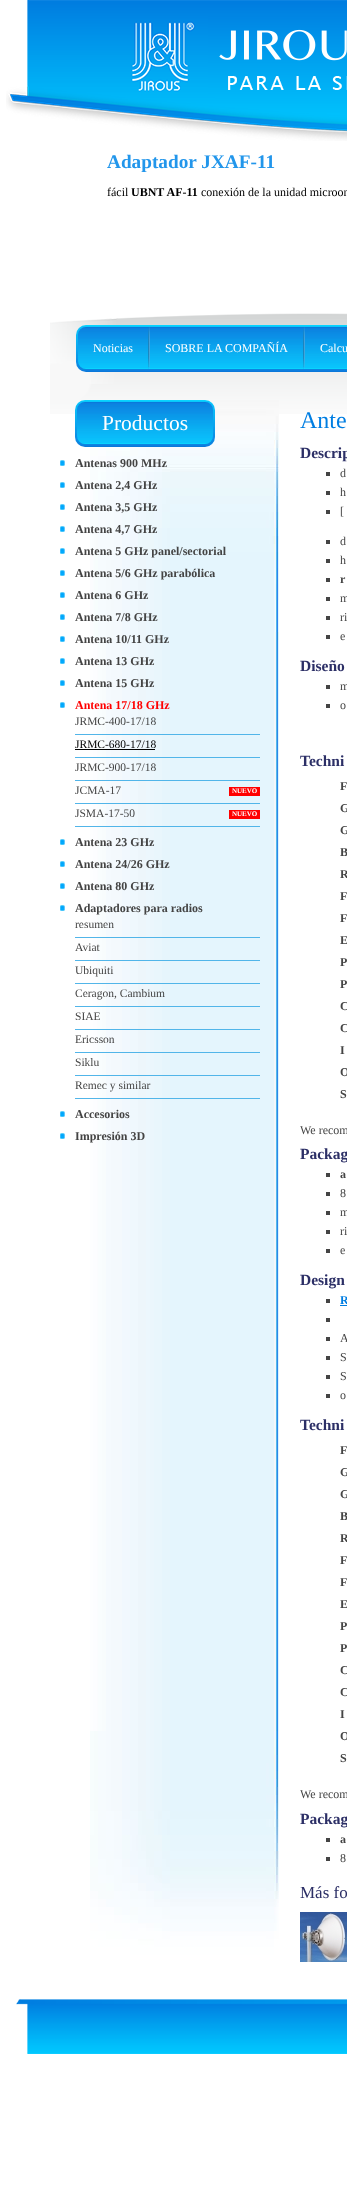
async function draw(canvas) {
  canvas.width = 347
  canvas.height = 2197
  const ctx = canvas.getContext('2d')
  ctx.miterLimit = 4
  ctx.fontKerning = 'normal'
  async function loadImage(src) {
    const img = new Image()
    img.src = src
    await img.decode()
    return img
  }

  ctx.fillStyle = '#fff'
  ctx.fillRect(0, 0, 347, 2197)
  ctx.drawImage(await loadImage('image0.png'), 6, 0, 341, 141)
  ctx.font = 'bold 19.25px Liberation Serif'
  ctx.fillStyle = '#2296eb'
  ctx.fillText('Adaptador JXAF-11', 107, 168)
  ctx.font = '12px Liberation Serif'
  ctx.fillStyle = '#000'
  ctx.fillText('fácil', 107, 196)
  ctx.font = 'bold 12px Liberation Serif'
  ctx.fillText('UBNT AF-11', 131, 196)
  ctx.font = '12px Liberation Serif'
  ctx.fillText('conexión de la unidad microon', 201, 196)
  ctx.drawImage(await loadImage('image6.png'), 50, 313, 297, 101)
  ctx.drawImage(await loadImage('image1.png'), 76, 325, 271, 47)
  ctx.drawImage(await loadImage('image2.png'), 78, 327, 70, 42)
  ctx.drawImage(await loadImage('image3.png'), 148, 327, 2, 42)
  ctx.fillStyle = '#fff'
  ctx.fillText('Noticias', 93, 352)
  ctx.drawImage(await loadImage('image4.png'), 150, 327, 153, 42)
  ctx.drawImage(await loadImage('image3.png'), 303, 327, 2, 42)
  ctx.fillText('SOBRE LA COMPAÑÍA', 165, 352)
  ctx.drawImage(await loadImage('image5.png'), 305, 327, 42, 42)
  ctx.fillText('Calcu', 320, 352)
  ctx.drawImage(await loadImage('image7.png'), 90, 640, 189, 1091)
  ctx.drawImage(await loadImage('image8.png'), 90, 400, 189, 240)
  ctx.drawImage(await loadImage('image9.png'), 90, 1731, 189, 238)
  ctx.drawImage(await loadImage('image10.png'), 75, 400, 140, 47)
  ctx.drawImage(await loadImage('image11.png'), 77, 402, 136, 42)
  ctx.font = '21.5px Liberation Serif'
  ctx.fillText('Productos', 102, 430)
  ctx.drawImage(await loadImage('image12.png'), 60, 460, 5, 6)
  ctx.font = 'bold 12px Liberation Serif'
  ctx.fillStyle = '#444'
  ctx.fillText('Antenas 900 MHz', 75, 467)
  ctx.drawImage(await loadImage('image12.png'), 60, 482, 5, 6)
  ctx.fillText('Antena 2,4 GHz', 75, 489)
  ctx.drawImage(await loadImage('image12.png'), 60, 504, 5, 6)
  ctx.fillText('Antena 3,5 GHz', 75, 511)
  ctx.drawImage(await loadImage('image12.png'), 60, 526, 5, 6)
  ctx.fillText('Antena 4,7 GHz', 75, 533)
  ctx.drawImage(await loadImage('image12.png'), 60, 548, 5, 6)
  ctx.fillText('Antena 5 GHz panel/sectorial', 75, 555)
  ctx.drawImage(await loadImage('image12.png'), 60, 570, 5, 6)
  ctx.fillText('Antena 5/6 GHz parabólica', 75, 577)
  ctx.drawImage(await loadImage('image12.png'), 60, 592, 5, 6)
  ctx.fillText('Antena 6 GHz', 75, 599)
  ctx.drawImage(await loadImage('image12.png'), 60, 614, 5, 6)
  ctx.fillText('Antena 7/8 GHz', 75, 621)
  ctx.drawImage(await loadImage('image12.png'), 60, 636, 5, 6)
  ctx.fillText('Antena 10/11 GHz', 75, 643)
  ctx.drawImage(await loadImage('image12.png'), 60, 658, 5, 6)
  ctx.fillText('Antena 13 GHz', 75, 665)
  ctx.drawImage(await loadImage('image12.png'), 60, 680, 5, 6)
  ctx.fillText('Antena 15 GHz', 75, 687)
  ctx.drawImage(await loadImage('image12.png'), 60, 702, 5, 6)
  ctx.fillStyle = '#f00'
  ctx.fillText('Antena 17/18 GHz', 75, 709)
  ctx.fillStyle = '#51b5e9'
  ctx.fillRect(75, 734, 185, 1)
  ctx.font = '11.5px Liberation Serif'
  ctx.fillStyle = '#444'
  ctx.fillText('JRMC-400-17/18', 75, 725)
  ctx.fillStyle = '#51b5e9'
  ctx.fillRect(75, 757, 185, 1)
  ctx.fillStyle = '#000'
  ctx.fillText('JRMC-680-17/18', 75, 748)
  ctx.fillRect(75, 749, 80, 1)
  ctx.fillStyle = '#51b5e9'
  ctx.fillRect(75, 780, 185, 1)
  ctx.fillStyle = '#444'
  ctx.fillText('JRMC-900-17/18', 75, 771)
  ctx.fillStyle = '#51b5e9'
  ctx.fillRect(75, 803, 185, 1)
  ctx.fillStyle = '#444'
  ctx.fillText('JCMA-17', 75, 794)
  ctx.fillStyle = '#f00'
  ctx.fillRect(229, 787, 31, 9)
  ctx.font = 'bold 7px Liberation Serif'
  ctx.fillStyle = '#fff'
  ctx.fillText('NUEVO', 232, 793)
  ctx.fillStyle = '#51b5e9'
  ctx.fillRect(75, 826, 185, 1)
  ctx.font = '11.5px Liberation Serif'
  ctx.fillStyle = '#444'
  ctx.fillText('JSMA-17-50', 75, 817)
  ctx.fillStyle = '#f00'
  ctx.fillRect(229, 810, 31, 9)
  ctx.font = 'bold 7px Liberation Serif'
  ctx.fillStyle = '#fff'
  ctx.fillText('NUEVO', 232, 816)
  ctx.drawImage(await loadImage('image12.png'), 60, 839, 5, 6)
  ctx.font = 'bold 12px Liberation Serif'
  ctx.fillStyle = '#444'
  ctx.fillText('Antena 23 GHz', 75, 846)
  ctx.drawImage(await loadImage('image12.png'), 60, 861, 5, 6)
  ctx.fillText('Antena 24/26 GHz', 75, 868)
  ctx.drawImage(await loadImage('image12.png'), 60, 883, 5, 6)
  ctx.fillText('Antena 80 GHz', 75, 890)
  ctx.drawImage(await loadImage('image12.png'), 60, 905, 5, 6)
  ctx.fillText('Adaptadores para radios', 75, 912)
  ctx.fillStyle = '#51b5e9'
  ctx.fillRect(75, 937, 185, 1)
  ctx.font = '11.5px Liberation Serif'
  ctx.fillStyle = '#444'
  ctx.fillText('resumen', 75, 928)
  ctx.fillStyle = '#51b5e9'
  ctx.fillRect(75, 960, 185, 1)
  ctx.fillStyle = '#444'
  ctx.fillText('Aviat', 75, 951)
  ctx.fillStyle = '#51b5e9'
  ctx.fillRect(75, 983, 185, 1)
  ctx.fillStyle = '#444'
  ctx.fillText('Ubiquiti', 75, 974)
  ctx.fillStyle = '#51b5e9'
  ctx.fillRect(75, 1006, 185, 1)
  ctx.fillStyle = '#444'
  ctx.fillText('Ceragon, Cambium', 75, 997)
  ctx.fillStyle = '#51b5e9'
  ctx.fillRect(75, 1029, 185, 1)
  ctx.fillStyle = '#444'
  ctx.fillText('SIAE', 75, 1020)
  ctx.fillStyle = '#51b5e9'
  ctx.fillRect(75, 1052, 185, 1)
  ctx.fillStyle = '#444'
  ctx.fillText('Ericsson', 75, 1043)
  ctx.fillStyle = '#51b5e9'
  ctx.fillRect(75, 1075, 185, 1)
  ctx.fillStyle = '#444'
  ctx.fillText('Siklu', 75, 1066)
  ctx.fillStyle = '#51b5e9'
  ctx.fillRect(75, 1098, 185, 1)
  ctx.fillStyle = '#444'
  ctx.fillText('Remec y similar', 75, 1089)
  ctx.drawImage(await loadImage('image12.png'), 60, 1111, 5, 6)
  ctx.font = 'bold 12px Liberation Serif'
  ctx.fillText('Accesorios', 75, 1118)
  ctx.drawImage(await loadImage('image12.png'), 60, 1133, 5, 6)
  ctx.fillText('Impresión 3D', 75, 1140)
  ctx.font = '24px Liberation Serif'
  ctx.fillStyle = '#007ee2'
  ctx.fillText('Ante', 300, 428)
  ctx.font = 'bold 15.5px Liberation Serif'
  ctx.fillStyle = '#2c2f66'
  ctx.fillText('Descrip', 300, 458)
  ctx.fillStyle = '#444'
  ctx.fillRect(326, 472, 4, 4)
  ctx.font = '12px Liberation Serif'
  ctx.fillText('d', 340, 477)
  ctx.fillRect(326, 491, 4, 4)
  ctx.fillText('h', 340, 496)
  ctx.fillRect(326, 510, 4, 4)
  ctx.fillText('[', 340, 515)
  ctx.fillRect(326, 540, 4, 4)
  ctx.fillText('d', 340, 545)
  ctx.fillRect(326, 559, 4, 4)
  ctx.fillText('h', 340, 564)
  ctx.fillRect(326, 578, 4, 4)
  ctx.font = 'bold 12px Liberation Serif'
  ctx.fillText('r', 340, 583)
  ctx.fillRect(326, 597, 4, 4)
  ctx.font = '12px Liberation Serif'
  ctx.fillText('m', 340, 602)
  ctx.fillRect(326, 616, 4, 4)
  ctx.fillText('ri', 340, 621)
  ctx.fillRect(326, 635, 4, 4)
  ctx.fillText('e', 340, 640)
  ctx.font = 'bold 15.5px Liberation Serif'
  ctx.fillStyle = '#2c2f66'
  ctx.fillText('Diseño', 300, 671)
  ctx.fillStyle = '#444'
  ctx.fillRect(326, 685, 4, 4)
  ctx.font = '12px Liberation Serif'
  ctx.fillText('m', 340, 690)
  ctx.fillRect(326, 704, 4, 4)
  ctx.fillText('o', 340, 709)
  ctx.font = 'bold 15.5px Liberation Serif'
  ctx.fillStyle = '#2c2f66'
  ctx.fillText('Techni', 300, 766)
  ctx.font = 'bold 12px Liberation Serif'
  ctx.fillStyle = '#444'
  ctx.fillText('F', 340, 790)
  ctx.fillText('G', 340, 812)
  ctx.fillText('G', 340, 834)
  ctx.fillText('B', 340, 856)
  ctx.fillText('R', 340, 878)
  ctx.fillText('F', 340, 900)
  ctx.fillText('F', 340, 922)
  ctx.fillText('E', 340, 944)
  ctx.fillText('P', 340, 966)
  ctx.fillText('P', 340, 988)
  ctx.fillText('C', 340, 1010)
  ctx.fillText('C', 340, 1032)
  ctx.fillText('I', 340, 1054)
  ctx.fillText('O', 340, 1076)
  ctx.fillText('S', 340, 1098)
  ctx.font = '12px Liberation Serif'
  ctx.fillText('We recom', 300, 1134)
  ctx.font = 'bold 15.5px Liberation Serif'
  ctx.fillStyle = '#2c2f66'
  ctx.fillText('Packag', 300, 1159)
  ctx.fillStyle = '#444'
  ctx.fillRect(326, 1173, 4, 4)
  ctx.font = 'bold 12px Liberation Serif'
  ctx.fillText('a', 340, 1178)
  ctx.fillRect(326, 1192, 4, 4)
  ctx.font = '12px Liberation Serif'
  ctx.fillText('8', 340, 1197)
  ctx.fillRect(326, 1211, 4, 4)
  ctx.fillText('m', 340, 1216)
  ctx.fillRect(326, 1230, 4, 4)
  ctx.fillText('ri', 340, 1235)
  ctx.fillRect(326, 1249, 4, 4)
  ctx.fillText('e', 340, 1254)
  ctx.font = 'bold 15.5px Liberation Serif'
  ctx.fillStyle = '#2c2f66'
  ctx.fillText('Design', 300, 1285)
  ctx.fillStyle = '#444'
  ctx.fillRect(326, 1299, 4, 4)
  ctx.font = 'bold 12px Liberation Serif'
  ctx.fillStyle = '#007ee2'
  ctx.fillText('R', 340, 1304)
  ctx.fillRect(340, 1305, 7, 1)
  ctx.fillStyle = '#444'
  ctx.fillRect(326, 1318, 4, 4)
  ctx.fillRect(326, 1337, 4, 4)
  ctx.font = '12px Liberation Serif'
  ctx.fillText('A', 340, 1342)
  ctx.fillRect(326, 1356, 4, 4)
  ctx.fillText('S', 340, 1361)
  ctx.fillRect(326, 1375, 4, 4)
  ctx.fillText('S', 340, 1380)
  ctx.fillRect(326, 1394, 4, 4)
  ctx.fillText('o', 340, 1399)
  ctx.font = 'bold 15.5px Liberation Serif'
  ctx.fillStyle = '#2c2f66'
  ctx.fillText('Techni', 300, 1430)
  ctx.font = 'bold 12px Liberation Serif'
  ctx.fillStyle = '#444'
  ctx.fillText('F', 340, 1454)
  ctx.fillText('G', 340, 1476)
  ctx.fillText('G', 340, 1498)
  ctx.fillText('B', 340, 1520)
  ctx.fillText('R', 340, 1542)
  ctx.fillText('F', 340, 1564)
  ctx.fillText('F', 340, 1586)
  ctx.fillText('E', 340, 1608)
  ctx.fillText('P', 340, 1630)
  ctx.fillText('P', 340, 1652)
  ctx.fillText('C', 340, 1674)
  ctx.fillText('C', 340, 1696)
  ctx.fillText('I', 340, 1718)
  ctx.fillText('O', 340, 1740)
  ctx.fillText('S', 340, 1762)
  ctx.font = '12px Liberation Serif'
  ctx.fillText('We recom', 300, 1798)
  ctx.font = 'bold 15.5px Liberation Serif'
  ctx.fillStyle = '#2c2f66'
  ctx.fillText('Packag', 300, 1824)
  ctx.fillStyle = '#444'
  ctx.fillRect(326, 1838, 4, 4)
  ctx.font = 'bold 12px Liberation Serif'
  ctx.fillText('a', 340, 1843)
  ctx.fillRect(326, 1857, 4, 4)
  ctx.font = '12px Liberation Serif'
  ctx.fillText('8', 340, 1862)
  ctx.font = '17px Liberation Serif'
  ctx.fillStyle = '#2c2f66'
  ctx.fillText('Más fo', 300, 1898)
  ctx.drawImage(await loadImage('image13.png'), 300, 1912, 47, 50)
  ctx.drawImage(await loadImage('image14.png'), 16, 1999, 331, 55)
}

draw(document.querySelector('canvas'))
